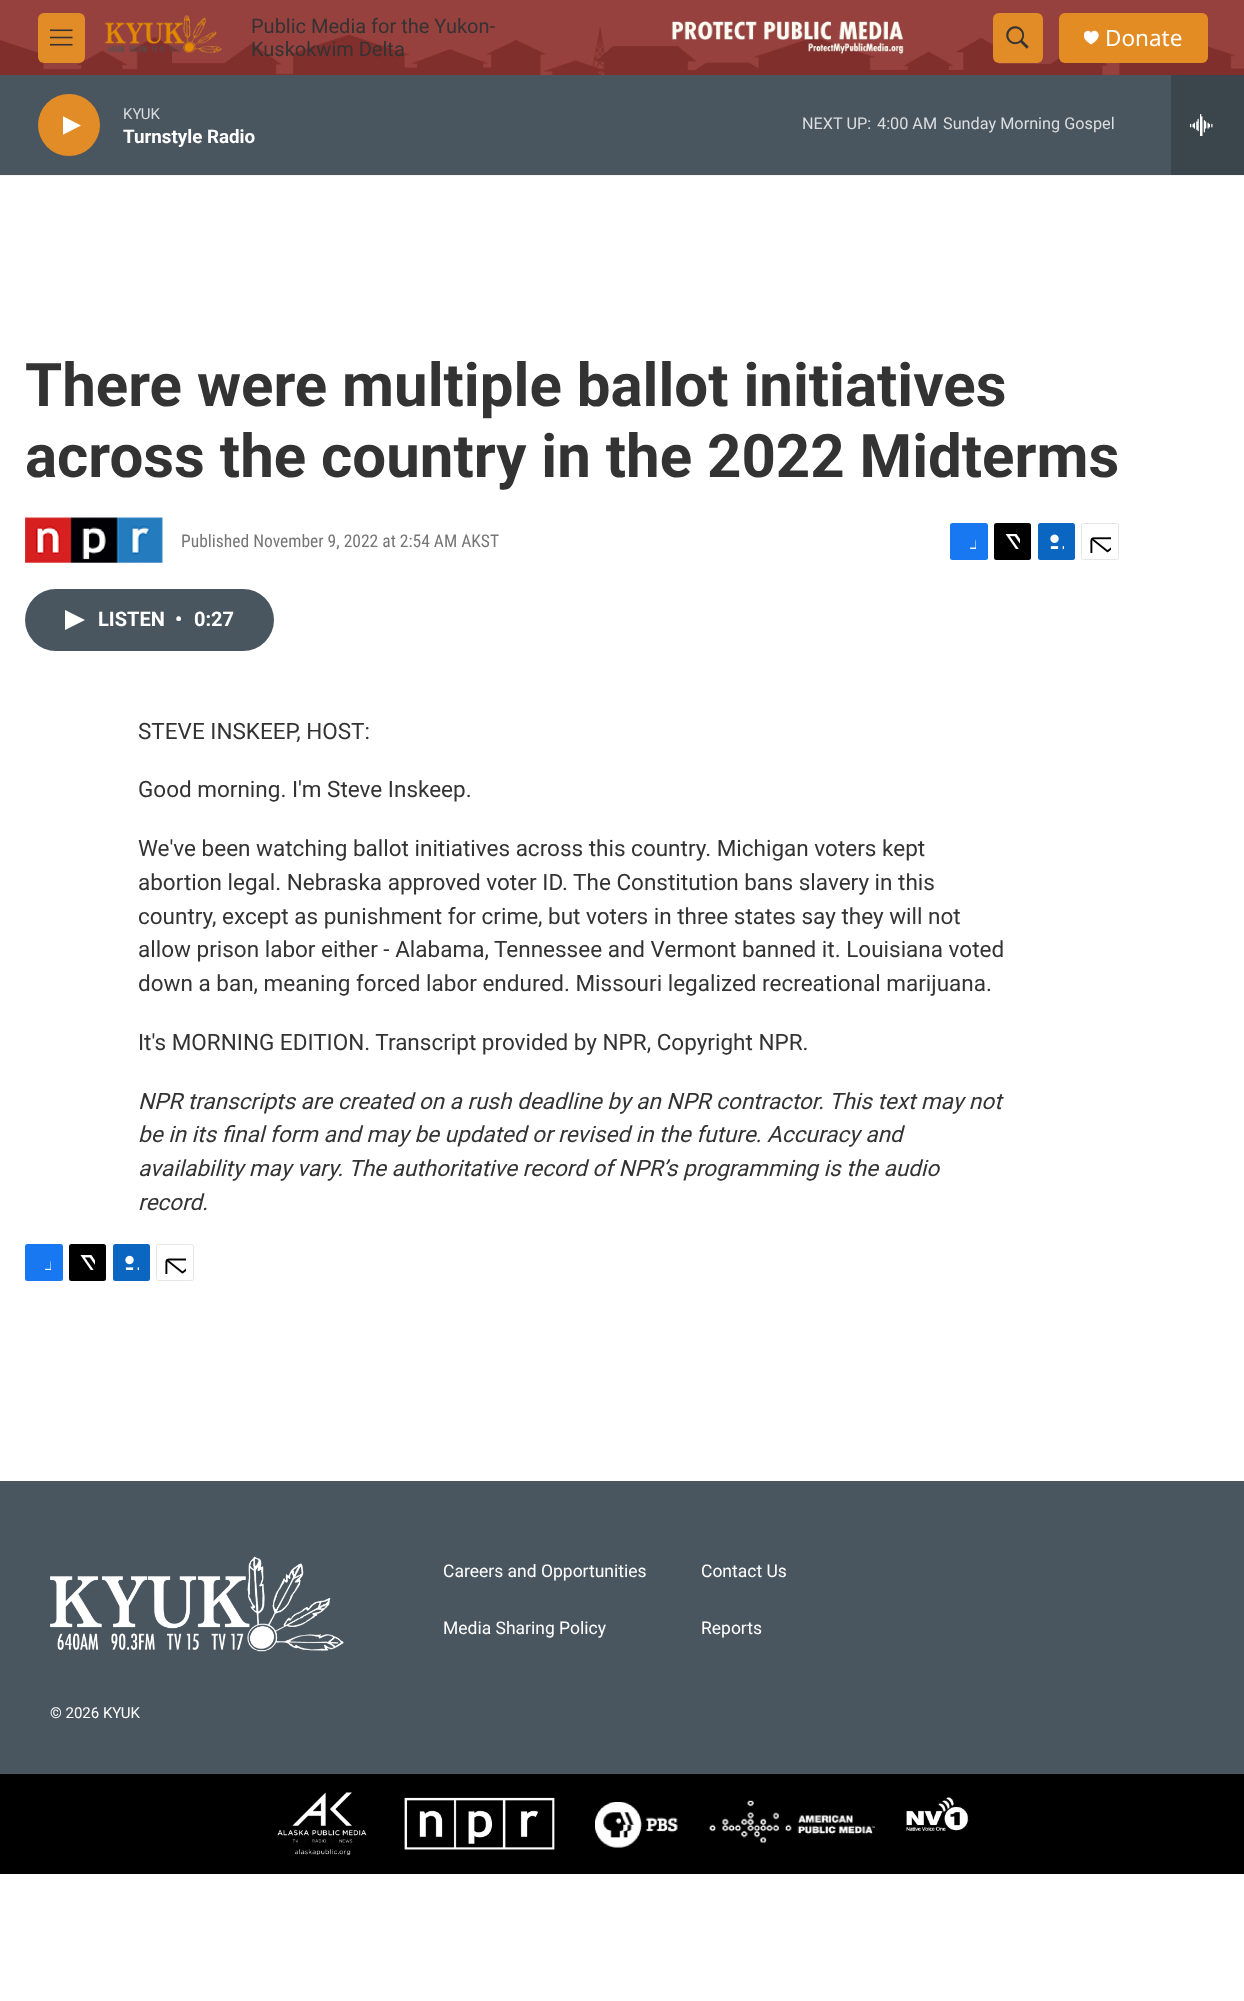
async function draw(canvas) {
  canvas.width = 1244
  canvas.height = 2001
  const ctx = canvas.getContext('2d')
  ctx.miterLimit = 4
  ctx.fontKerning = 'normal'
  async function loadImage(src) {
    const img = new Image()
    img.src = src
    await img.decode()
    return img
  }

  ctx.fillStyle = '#fff'
  ctx.fillRect(0, 0, 1244, 2001)
  ctx.fillStyle = '#f5f5f5'
  ctx.fillRect(0, 175, 1244, 1)
  ctx.drawImage(await loadImage('image0.png'), 0, 0, 1244, 75)
  ctx.fillStyle = '#e28c27'
  ctx.beginPath()
  ctx.roundRect(38, 13, 47, 50, 6)
  ctx.fill()
  ctx.drawImage(await loadImage('image1.png'), 50, 29, 23, 17)
  ctx.drawImage(await loadImage('image2.png'), 104, 15, 118, 39)
  ctx.font = '20px Roboto'
  ctx.fillStyle = '#333'
  ctx.fillText('Public Media for the Yukon-', 251, 33)
  ctx.fillText('Kuskokwim Delta', 251, 56)
  ctx.fillStyle = '#e28c27'
  ctx.beginPath()
  ctx.roundRect(993, 13, 50, 50, 6)
  ctx.fill()
  ctx.drawImage(await loadImage('image3.png'), 1006, 26, 23, 23)
  ctx.fillStyle = '#e48c24'
  ctx.beginPath()
  ctx.roundRect(1059, 13, 149, 50, 6)
  ctx.fill()
  ctx.save()
  ctx.beginPath()
  ctx.rect(1084, 30, 15, 15)
  ctx.clip()
  ctx.fillStyle = '#fff'
  ctx.beginPath()
  ctx.moveTo(1091, 33)
  ctx.bezierCurveTo(1089, 26.5, 1075.5, 35, 1091, 44.5)
  ctx.bezierCurveTo(1107, 35, 1093.5, 26.5, 1091, 33)
  ctx.closePath()
  ctx.fill()
  ctx.restore()
  ctx.font = '22.5px Noto Sans'
  ctx.fillStyle = '#fff'
  ctx.fillText('Donate', 1105, 46)
  ctx.fillStyle = '#4a565f'
  ctx.fillRect(0, 75, 1171, 100)
  ctx.fillStyle = '#e28c27'
  ctx.beginPath()
  ctx.arc(69, 125, 31, 0, 2 * Math.PI)
  ctx.fill()
  ctx.save()
  ctx.beginPath()
  ctx.rect(63, 114, 18, 24)
  ctx.clip()
  ctx.fillStyle = '#fff'
  ctx.beginPath()
  ctx.moveTo(62.5, 116)
  ctx.lineTo(81, 125.5)
  ctx.lineTo(62.5, 135)
  ctx.closePath()
  ctx.fill()
  ctx.restore()
  ctx.font = '15px Roboto'
  ctx.fillStyle = '#dbdddf'
  ctx.fillText('KYUK', 123, 119)
  ctx.font = 'bold 18.75px "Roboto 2"'
  ctx.fillStyle = '#fff'
  ctx.fillText('Turnstyle Radio', 123, 143)
  ctx.font = '16.25px Roboto'
  ctx.fillStyle = '#dbdddf'
  ctx.fillText('NEXT UP:', 802, 129)
  ctx.fillText('4:00 AM', 877, 129)
  ctx.fillText('Sunday Morning Gospel', 943, 129)
  ctx.fillStyle = '#3b454c'
  ctx.fillRect(1171, 75, 73, 100)
  ctx.drawImage(await loadImage('image4.png'), 1190, 114, 23, 22)
  ctx.font = 'bold 60px Roboto'
  ctx.fillStyle = '#333'
  ctx.fillText('There were multiple ballot initiatives', 25, 406)
  ctx.fillText('across the country in the 2022 Midterms', 25, 477)
  ctx.drawImage(await loadImage('image5.png'), 25, 517, 138, 47)
  ctx.font = '17.5px Roboto Condensed'
  ctx.fillStyle = '#767676'
  ctx.fillText('Published November 9, 2022 at 2:54 AM AKST', 181, 547)
  ctx.fillStyle = '#1778f2'
  ctx.beginPath()
  ctx.roundRect(950, 523, 38, 37, 2.5)
  ctx.fill()
  ctx.drawImage(await loadImage('image6.png'), 970, 539, 6, 10)
  ctx.fillStyle = '#000'
  ctx.beginPath()
  ctx.roundRect(994, 523, 37, 37, 2.5)
  ctx.fill()
  ctx.drawImage(await loadImage('image7.png'), 1005, 534, 15, 15)
  ctx.fillStyle = '#0a66c1'
  ctx.beginPath()
  ctx.roundRect(1038, 523, 37, 37, 2.5)
  ctx.fill()
  ctx.drawImage(await loadImage('image8.png'), 1050, 534, 14, 15)
  ctx.beginPath()
  ctx.roundRect(1081.5, 523.5, 37, 36, 2)
  ctx.strokeStyle = '#e6e6e6'
  ctx.stroke()
  ctx.drawImage(await loadImage('image9.png'), 1090, 537, 21, 16)
  ctx.fillStyle = '#4a565f'
  ctx.beginPath()
  ctx.roundRect(25, 589, 249, 62, 31)
  ctx.fill()
  ctx.fillStyle = '#fff'
  ctx.beginPath()
  ctx.moveTo(65, 610)
  ctx.lineTo(85, 620)
  ctx.lineTo(65, 630)
  ctx.closePath()
  ctx.fill()
  ctx.font = 'bold 20px "Roboto 2"'
  ctx.fillText('LISTEN', 98, 626)
  ctx.fillText('•', 175, 626)
  ctx.fillText('0:27', 194, 626)
  ctx.font = '22.5px Roboto'
  ctx.fillStyle = '#333'
  ctx.fillText('STEVE INSKEEP, HOST:', 138, 739)
  ctx.fillText('Good morning. I\'m Steve Inskeep.', 138, 797)
  ctx.fillText('We\'ve been watching ballot initiatives across this country. Michigan voters kept', 138, 856)
  ctx.fillText('abortion legal. Nebraska approved voter ID. The Constitution bans slavery in this', 138, 890)
  ctx.fillText('country, except as punishment for crime, but voters in three states say they will not', 138, 924)
  ctx.fillText('allow prison labor either - Alabama, Tennessee and Vermont banned it. Louisiana voted', 138, 957)
  ctx.fillText('down a ban, meaning forced labor endured. Missouri legalized recreational marijuana.', 138, 991)
  ctx.fillText('It\'s MORNING EDITION. Transcript provided by NPR, Copyright NPR.', 138, 1050)
  ctx.font = 'italic 22.5px Roboto'
  ctx.fillText('NPR transcripts are created on a rush deadline by an NPR contractor. This text may not', 138, 1109)
  ctx.fillText('be in its final form and may be updated or revised in the future. Accuracy and', 138, 1142)
  ctx.fillText('availability may vary. The authoritative record of NPR’s programming is the audio', 138, 1176)
  ctx.fillText('record.', 138, 1210)
  ctx.fillStyle = '#1778f2'
  ctx.beginPath()
  ctx.roundRect(25, 1244, 38, 37, 2.5)
  ctx.fill()
  ctx.drawImage(await loadImage('image10.png'), 45, 1260, 6, 10)
  ctx.fillStyle = '#000'
  ctx.beginPath()
  ctx.roundRect(69, 1244, 37, 37, 2.5)
  ctx.fill()
  ctx.drawImage(await loadImage('image11.png'), 80, 1255, 15, 15)
  ctx.fillStyle = '#0a66c1'
  ctx.beginPath()
  ctx.roundRect(113, 1244, 37, 37, 2.5)
  ctx.fill()
  ctx.drawImage(await loadImage('image12.png'), 125, 1255, 14, 15)
  ctx.beginPath()
  ctx.roundRect(156.5, 1244.5, 37, 36, 2)
  ctx.stroke()
  ctx.drawImage(await loadImage('image13.png'), 165, 1258, 21, 16)
  ctx.fillStyle = '#4a565f'
  ctx.fillRect(0, 1481, 1244, 293)
  ctx.font = '17.5px Roboto'
  ctx.fillStyle = '#fff'
  ctx.fillText('Careers and Opportunities', 443, 1577)
  ctx.fillText('Contact Us', 701, 1577)
  ctx.fillText('Media Sharing Policy', 443, 1634)
  ctx.fillText('Reports', 701, 1634)
  ctx.drawImage(await loadImage('image14.png'), 50, 1556, 294, 96)
  ctx.font = '15px Roboto'
  ctx.fillText('© 2026 KYUK', 50, 1718)
  ctx.fillStyle = '#000'
  ctx.fillRect(0, 1774, 1244, 100)
  ctx.drawImage(await loadImage('image15.png'), 277, 1792, 90, 63)
  ctx.drawImage(await loadImage('image16.png'), 404, 1797, 151, 53)
  ctx.drawImage(await loadImage('image17.png'), 595, 1802, 83, 46)
  ctx.drawImage(await loadImage('image18.png'), 708, 1800, 167, 43)
  ctx.drawImage(await loadImage('image19.png'), 906, 1797, 63, 34)
}

draw(document.querySelector('canvas'))
